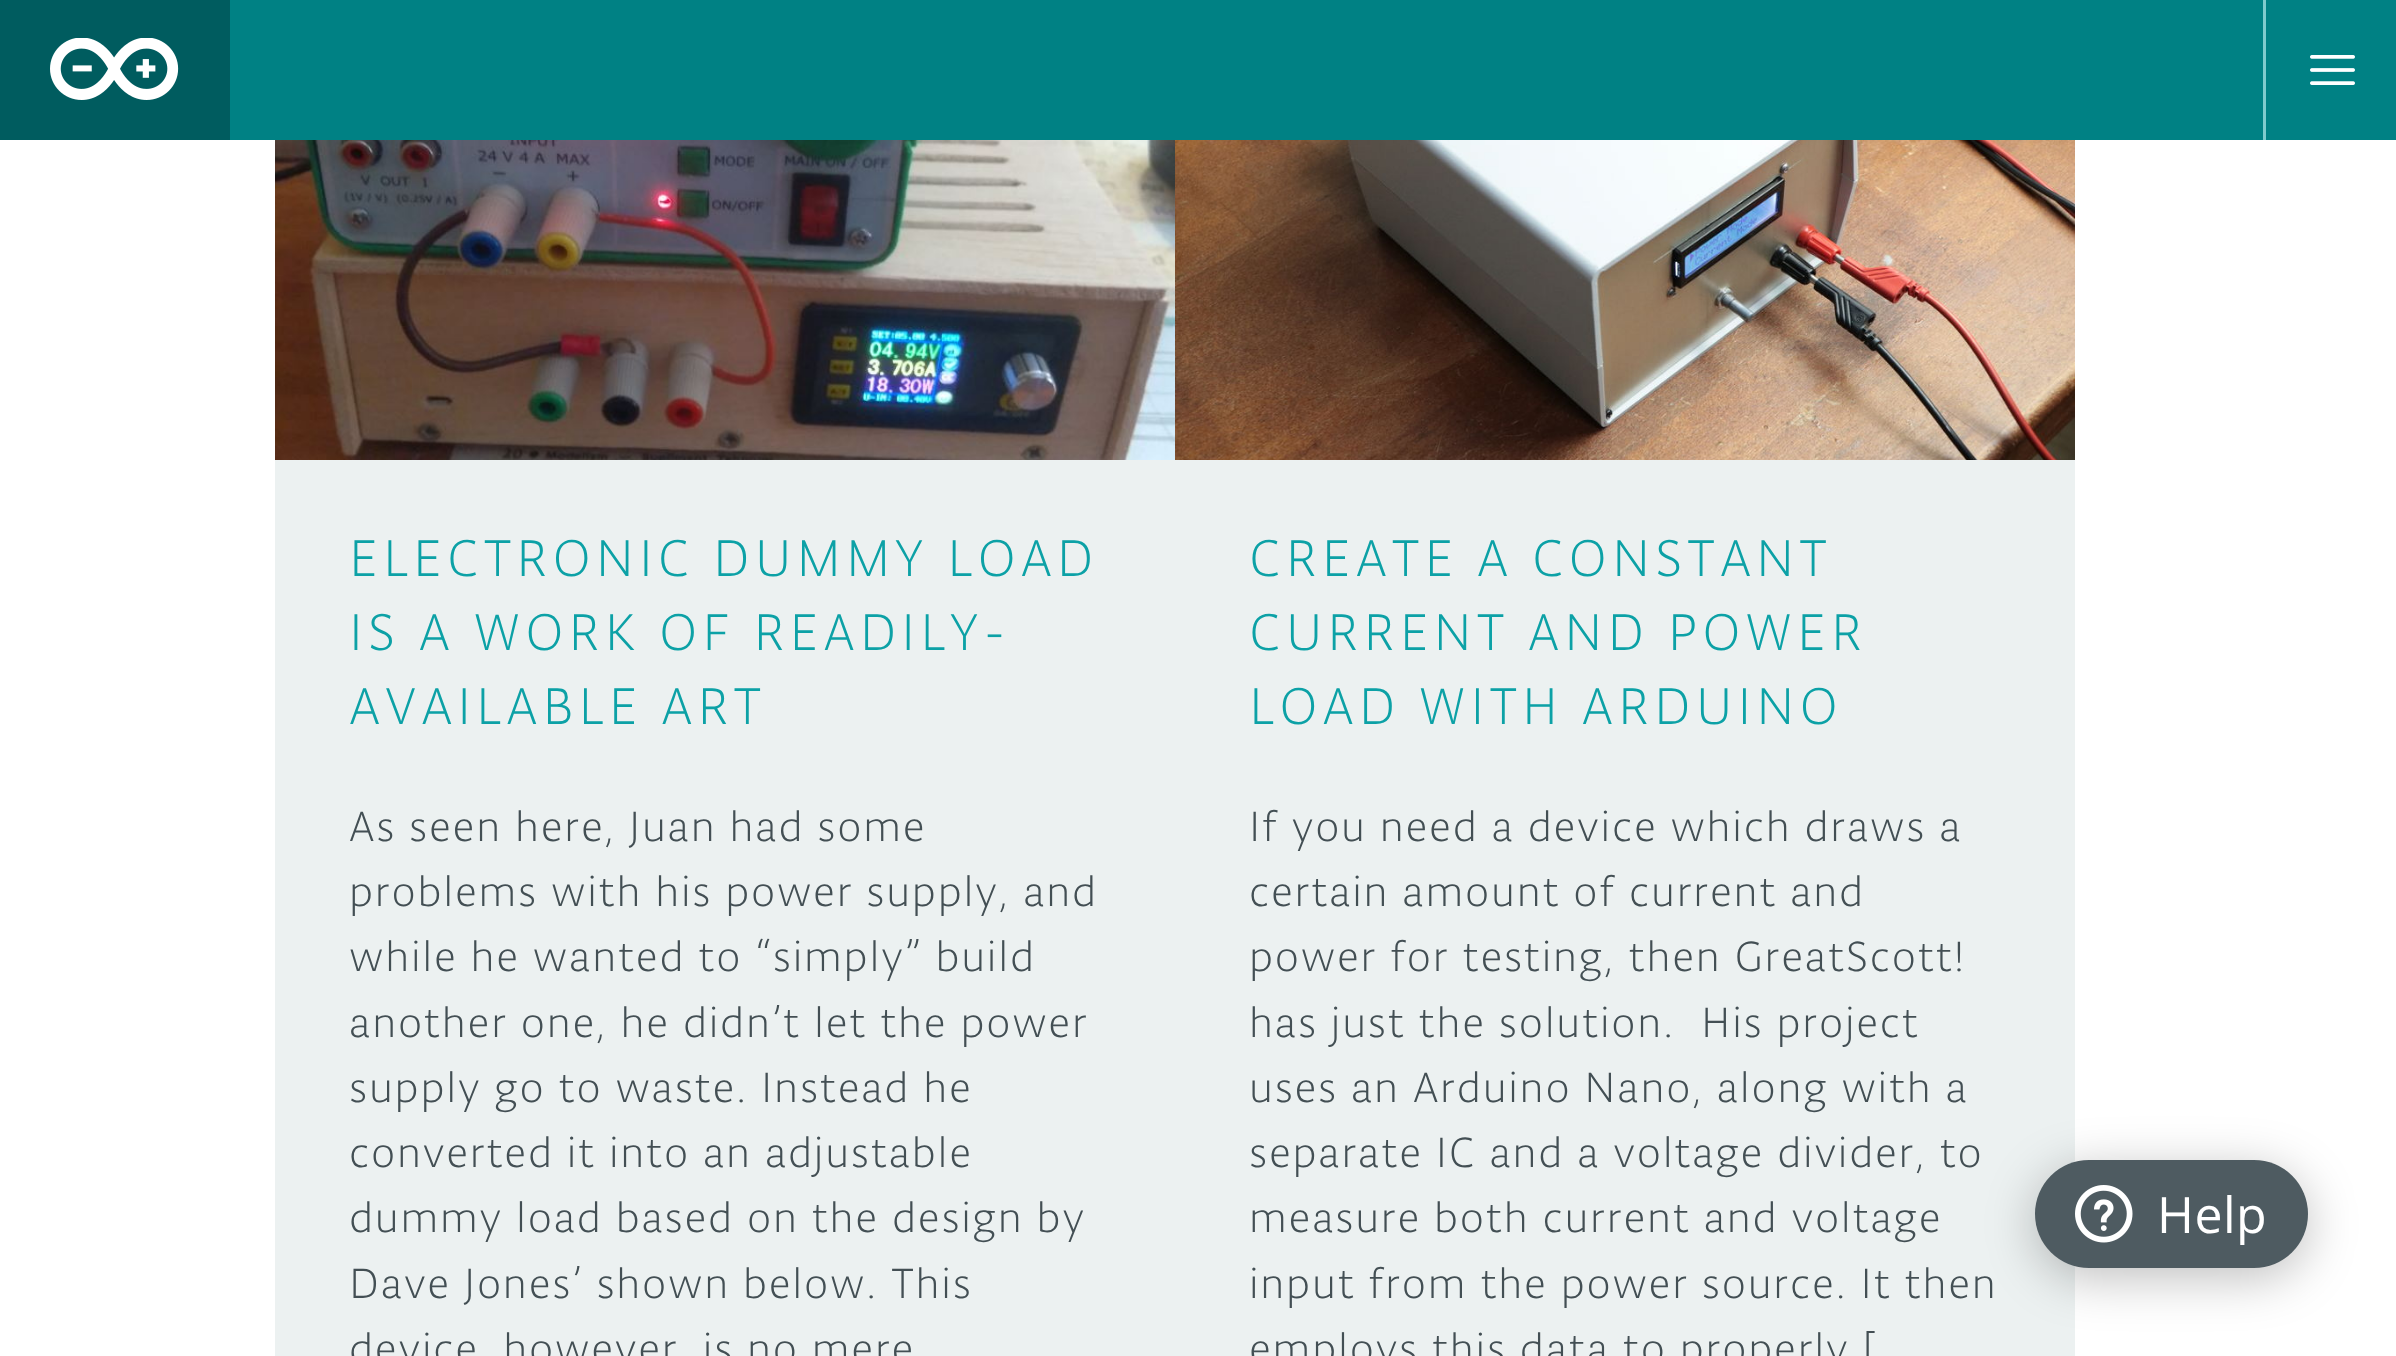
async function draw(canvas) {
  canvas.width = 2396
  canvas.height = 1356
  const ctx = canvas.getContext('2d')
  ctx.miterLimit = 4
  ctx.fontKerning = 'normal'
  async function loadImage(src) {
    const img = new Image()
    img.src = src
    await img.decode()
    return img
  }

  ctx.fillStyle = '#fff'
  ctx.fillRect(0, 0, 2396, 1356)
  ctx.fillStyle = '#008184'
  ctx.fillRect(230, 0, 2166, 140)
  ctx.fillStyle = '#005c5f'
  ctx.fillRect(0, 0, 230, 140)
  ctx.drawImage(await loadImage('image0.png'), 50, 38, 129, 62)
  ctx.fillStyle = '#7fcbcd'
  ctx.fillRect(2263, 0, 3, 140)
  ctx.drawImage(await loadImage('image1.png'), 2310, 55, 45, 30)
  ctx.fillStyle = '#ecf1f1'
  ctx.fillRect(275, 460, 1800, 896)
  ctx.drawImage(await loadImage('image2.png'), 275, 140, 900, 320)
  ctx.letterSpacing = '5px'
  ctx.font = '300 55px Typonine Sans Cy'
  ctx.fillStyle = '#0ca1a6'
  ctx.fillText('ELECTRONIC DUMMY LOAD', 349, 576)
  ctx.fillText('IS A WORK OF READILY-', 349, 650)
  ctx.fillText('AVAILABLE ART', 349, 724)
  ctx.letterSpacing = '1.75px'
  ctx.font = '300 45px Typonine Sans Cy'
  ctx.fillStyle = '#434f54'
  ctx.fillText('As seen here, Juan had some', 349, 841)
  ctx.fillText('problems with his power supply, and', 349, 906)
  ctx.fillText('while he wanted to “simply” build', 349, 971)
  ctx.fillText('another one, he didn’t let the power', 349, 1037)
  ctx.fillText('supply go to waste. Instead he', 349, 1102)
  ctx.fillText('converted it into an adjustable', 349, 1167)
  ctx.fillText('dummy load based on the design by', 349, 1232)
  ctx.fillText('Dave Jones’ shown below. This', 349, 1298)
  ctx.fillText('device, however, is no mere', 349, 1363)
  ctx.drawImage(await loadImage('image3.png'), 1175, 140, 900, 320)
  ctx.letterSpacing = '5px'
  ctx.font = '300 55px Typonine Sans Cy'
  ctx.fillStyle = '#0ca1a6'
  ctx.fillText('CREATE A CONSTANT', 1249, 576)
  ctx.fillText('CURRENT AND POWER', 1249, 650)
  ctx.fillText('LOAD WITH ARDUINO', 1249, 724)
  ctx.letterSpacing = '1.75px'
  ctx.font = '300 45px Typonine Sans Cy'
  ctx.fillStyle = '#434f54'
  ctx.fillText('If you need a device which draws a', 1249, 841)
  ctx.fillText('certain amount of current and', 1249, 906)
  ctx.fillText('power for testing, then GreatScott!', 1249, 971)
  ctx.fillText('has just the solution.  His project', 1249, 1037)
  ctx.fillText('uses an Arduino Nano, along with a', 1249, 1102)
  ctx.fillText('separate IC and a voltage divider, to', 1249, 1167)
  ctx.fillText('measure both current and voltage', 1249, 1232)
  ctx.fillText('input from the power source. It then', 1249, 1298)
  ctx.fillText('employs this data to properly [', 1249, 1363)
  ctx.fillStyle = '#00000040'
  ctx.filter = 'blur(25px)'
  ctx.beginPath()
  ctx.roundRect(2035, 1170, 273, 108, 54)
  ctx.fill()
  ctx.filter = 'none'
  ctx.fillStyle = '#4e5b61'
  ctx.beginPath()
  ctx.roundRect(2035, 1160, 273, 108, 54)
  ctx.fill()
  ctx.drawImage(await loadImage('image4.png'), 2075, 1185, 58, 58)
  ctx.letterSpacing = '0.5px'
  ctx.font = '50px Open Sans'
  ctx.fillStyle = '#fff'
  ctx.fillText('Help', 2157, 1233)
}

draw(document.querySelector('canvas'))
